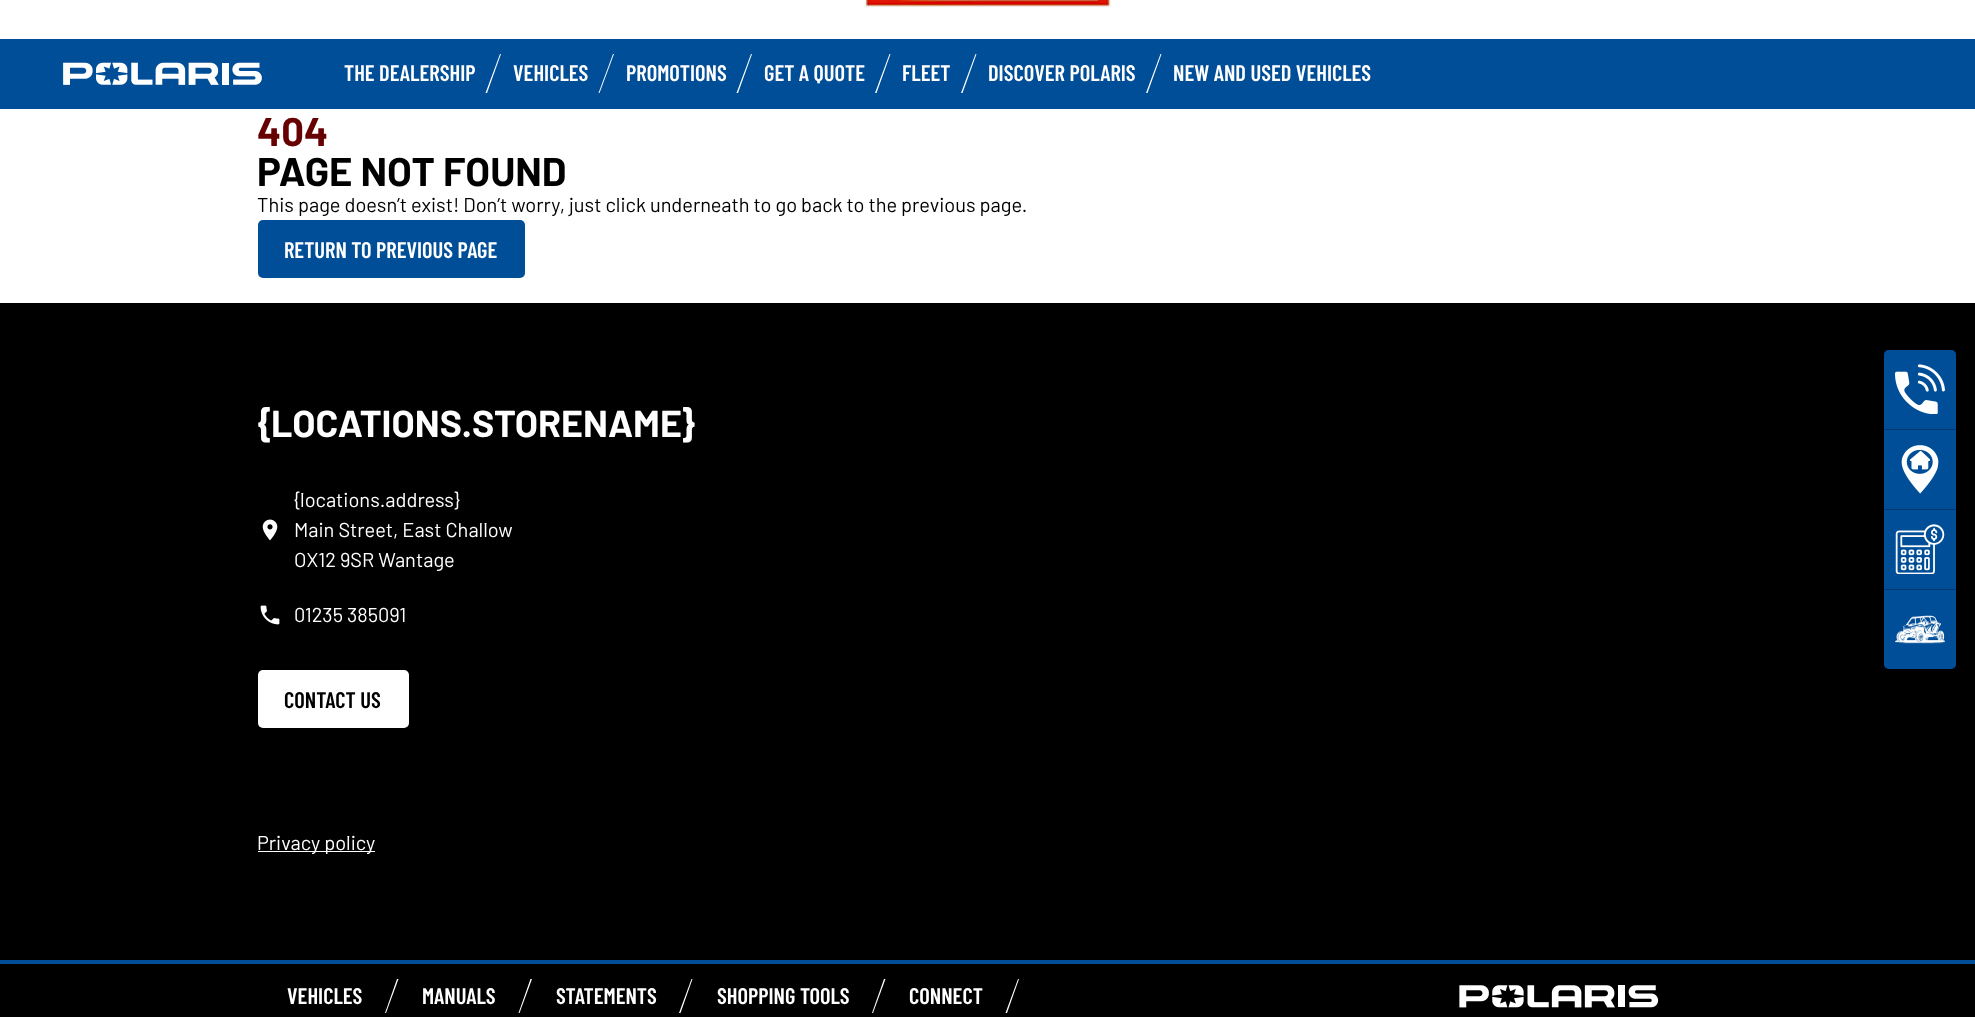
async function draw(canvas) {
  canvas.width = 1975
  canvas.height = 1017
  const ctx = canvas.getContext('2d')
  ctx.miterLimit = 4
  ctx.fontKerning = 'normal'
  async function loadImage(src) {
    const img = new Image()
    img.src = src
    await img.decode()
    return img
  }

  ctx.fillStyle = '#fff'
  ctx.fillRect(0, 0, 1975, 1017)
  ctx.drawImage(await loadImage('image0.png'), 864, 0, 248, 8)
  ctx.fillStyle = '#004e97'
  ctx.fillRect(0, 39, 1975, 70)
  ctx.drawImage(await loadImage('image1.png'), 63, 62, 199, 23)
  ctx.font = '600 22.5px Barlow Condensed'
  ctx.fillStyle = '#fff'
  ctx.fillText('THE DEALERSHIP', 344, 81)
  ctx.beginPath()
  ctx.moveTo(500, 54)
  ctx.lineTo(501, 54)
  ctx.lineTo(487, 93)
  ctx.lineTo(485.5, 93)
  ctx.closePath()
  ctx.fill()
  ctx.fillText('VEHICLES', 513, 81)
  ctx.beginPath()
  ctx.moveTo(613, 54)
  ctx.lineTo(614, 54)
  ctx.lineTo(599.5, 93)
  ctx.lineTo(598.5, 93)
  ctx.closePath()
  ctx.fill()
  ctx.fillText('PROMOTIONS', 626, 81)
  ctx.beginPath()
  ctx.moveTo(751, 54)
  ctx.lineTo(752, 54)
  ctx.lineTo(738, 93)
  ctx.lineTo(736.5, 93)
  ctx.closePath()
  ctx.fill()
  ctx.fillText('GET A QUOTE', 764, 81)
  ctx.beginPath()
  ctx.moveTo(889.5, 54)
  ctx.lineTo(890.5, 54)
  ctx.lineTo(876.5, 93)
  ctx.lineTo(875, 93)
  ctx.closePath()
  ctx.fill()
  ctx.fillText('FLEET', 902, 81)
  ctx.beginPath()
  ctx.moveTo(975.5, 54)
  ctx.lineTo(976.5, 54)
  ctx.lineTo(962.5, 93)
  ctx.lineTo(961, 93)
  ctx.closePath()
  ctx.fill()
  ctx.fillText('DISCOVER POLARIS', 988, 81)
  ctx.beginPath()
  ctx.moveTo(1160.5, 54)
  ctx.lineTo(1161.5, 54)
  ctx.lineTo(1147.5, 93)
  ctx.lineTo(1146, 93)
  ctx.closePath()
  ctx.fill()
  ctx.fillText('NEW AND USED VEHICLES', 1173, 81)
  ctx.font = 'bold 40px Barlow'
  ctx.fillStyle = '#670000'
  ctx.fillText('404', 257, 146)
  ctx.fillStyle = '#000'
  ctx.fillText('PAGE NOT FOUND', 257, 186)
  ctx.font = '20px Barlow'
  ctx.fillText('This page doesn’t exist! Don’t worry, just click underneath to go back to the previous page.', 257, 212)
  ctx.fillStyle = '#004e97'
  ctx.beginPath()
  ctx.roundRect(258, 220, 267, 58, 5)
  ctx.fill()
  ctx.font = '600 22.5px Barlow Condensed'
  ctx.fillStyle = '#fff'
  ctx.fillText('RETURN TO PREVIOUS PAGE', 284, 258)
  ctx.fillStyle = '#000'
  ctx.fillRect(0, 303, 1975, 657)
  ctx.font = 'bold 37.5px Barlow'
  ctx.fillStyle = '#fff'
  ctx.fillText('{LOCATIONS.STORENAME}', 257, 437)
  ctx.drawImage(await loadImage('image2.png'), 262, 519, 16, 22)
  ctx.font = '20px Barlow'
  ctx.fillText('{locations.address}', 294, 507)
  ctx.fillText('Main Street, East Challow', 294, 537)
  ctx.fillText('OX12 9SR Wantage', 294, 567)
  ctx.drawImage(await loadImage('image3.png'), 260, 605, 20, 20)
  ctx.fillText('01235 385091', 294, 622)
  ctx.beginPath()
  ctx.roundRect(258, 670, 151, 58, 5)
  ctx.fill()
  ctx.font = '600 22.5px Barlow Condensed'
  ctx.fillStyle = '#000'
  ctx.fillText('CONTACT US', 284, 708)
  ctx.fillStyle = '#fff'
  ctx.fillRect(258, 851, 117, 1)
  ctx.font = '20px Barlow'
  ctx.fillText('Privacy policy', 257, 850)
  ctx.fillStyle = '#000'
  ctx.fillRect(0, 964, 1975, 53)
  ctx.fillStyle = '#004e97'
  ctx.fillRect(0, 960, 1975, 4)
  ctx.font = '600 22.5px Barlow Condensed'
  ctx.fillStyle = '#fff'
  ctx.fillText('VEHICLES', 287, 1004)
  ctx.beginPath()
  ctx.moveTo(397, 979)
  ctx.lineTo(398.5, 979)
  ctx.lineTo(386, 1013)
  ctx.lineTo(385, 1013)
  ctx.closePath()
  ctx.fill()
  ctx.fillText('MANUALS', 422, 1004)
  ctx.beginPath()
  ctx.moveTo(530.5, 979)
  ctx.lineTo(532, 979)
  ctx.lineTo(519.5, 1013)
  ctx.lineTo(518.5, 1013)
  ctx.closePath()
  ctx.fill()
  ctx.fillText('STATEMENTS', 556, 1004)
  ctx.beginPath()
  ctx.moveTo(691.5, 979)
  ctx.lineTo(692.5, 979)
  ctx.lineTo(680.5, 1013)
  ctx.lineTo(679, 1013)
  ctx.closePath()
  ctx.fill()
  ctx.fillText('SHOPPING TOOLS', 717, 1004)
  ctx.beginPath()
  ctx.moveTo(884, 979)
  ctx.lineTo(885.5, 979)
  ctx.lineTo(873, 1013)
  ctx.lineTo(872, 1013)
  ctx.closePath()
  ctx.fill()
  ctx.fillText('CONNECT', 909, 1004)
  ctx.beginPath()
  ctx.moveTo(1018, 979)
  ctx.lineTo(1019, 979)
  ctx.lineTo(1007, 1013)
  ctx.lineTo(1005.5, 1013)
  ctx.closePath()
  ctx.fill()
  ctx.drawImage(await loadImage('image4.png'), 1459, 985, 200, 23)
  ctx.fillStyle = '#00396f'
  ctx.beginPath()
  ctx.roundRect(1884, 350, 72, 319, 5)
  ctx.fill()
  ctx.fillStyle = '#004e97'
  ctx.beginPath()
  ctx.roundRect(1884, 350, 72, 79, [5, 5, 0, 0])
  ctx.fill()
  ctx.drawImage(await loadImage('image5.png'), 1895, 364, 50, 50)
  ctx.fillRect(1884, 430, 72, 79)
  ctx.drawImage(await loadImage('image6.png'), 1901, 445, 38, 49)
  ctx.fillRect(1884, 510, 72, 79)
  ctx.drawImage(await loadImage('image7.png'), 1895, 524, 50, 50)
  ctx.beginPath()
  ctx.roundRect(1884, 590, 72, 79, [0, 0, 5, 5])
  ctx.fill()
  ctx.drawImage(await loadImage('image8.png'), 1895, 615, 50, 29)
}

draw(document.querySelector('canvas'))
